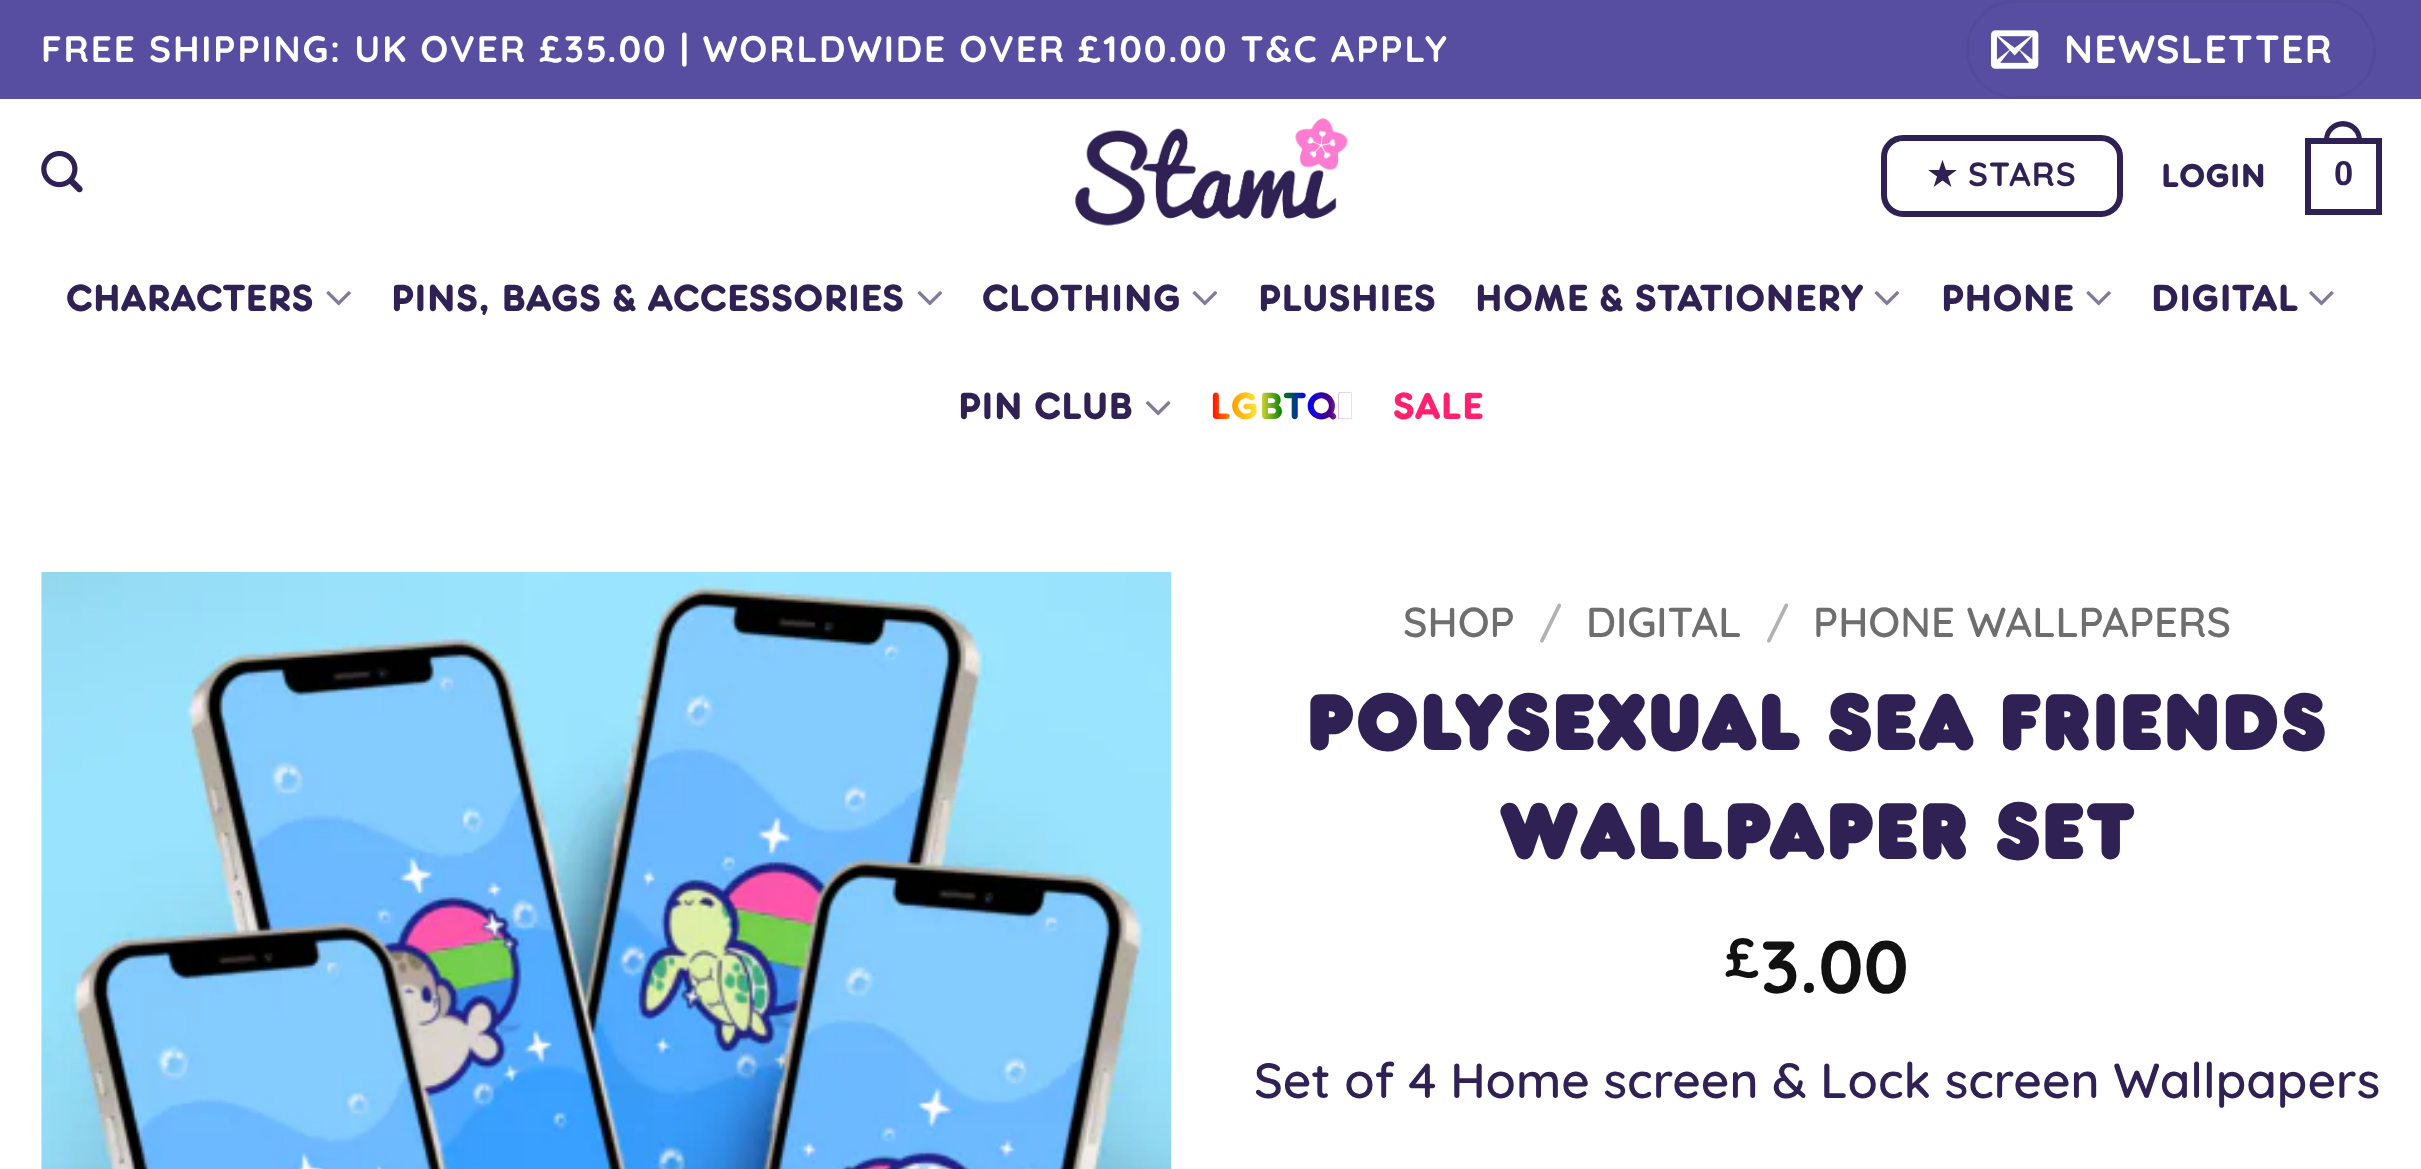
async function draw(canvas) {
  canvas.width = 2421
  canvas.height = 1169
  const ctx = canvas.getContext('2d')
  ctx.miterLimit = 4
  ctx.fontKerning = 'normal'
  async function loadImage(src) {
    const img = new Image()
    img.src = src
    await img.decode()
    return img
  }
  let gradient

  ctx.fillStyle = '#fff'
  ctx.fillRect(0, 0, 2421, 1169)
  ctx.fillStyle = '#574ea2'
  ctx.fillRect(0, 0, 2421, 99)
  ctx.letterSpacing = '1.85px'
  ctx.font = 'bold 36.95px Quicksand'
  ctx.fillStyle = '#fff'
  ctx.fillText('FREE SHIPPING: UK OVER £35.00 | WORLDWIDE OVER £100.00 T&C APPLY', 41, 62)
  ctx.beginPath()
  ctx.roundRect(1967.5, 1.5, 407, 96, 48)
  ctx.strokeStyle = '#534a9a'
  ctx.lineWidth = 3
  ctx.stroke()
  ctx.drawImage(await loadImage('image0.png'), 1991, 30, 48, 39)
  ctx.letterSpacing = '1.25px'
  ctx.font = 'bold 39.4px Quicksand'
  ctx.fillText('NEWSLETTER', 2064, 63)
  ctx.drawImage(await loadImage('image1.png'), 41, 150, 42, 43)
  ctx.drawImage(await loadImage('image2.png'), 1075, 118, 273, 108)
  ctx.beginPath()
  ctx.roundRect(1884, 138, 236, 76, 19)
  ctx.strokeStyle = '#2f2154'
  ctx.lineWidth = 6
  ctx.stroke()
  ctx.letterSpacing = '1px'
  ctx.font = 'bold 33.5px DejaVu Sans'
  ctx.fillStyle = '#2f2154'
  ctx.fillText('★', 1927, 186)
  ctx.font = 'bold 33.5px Quicksand'
  ctx.fillText('STARS', 1968, 186)
  ctx.letterSpacing = '0.5px'
  ctx.font = '500 34.5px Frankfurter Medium'
  ctx.fillText('LOGIN', 2161, 187)
  ctx.strokeRect(2308, 141, 71, 71)
  ctx.beginPath()
  ctx.moveTo(2343, 121)
  ctx.bezierCurveTo(2353.5, 121, 2362, 129.5, 2362, 140)
  ctx.lineTo(2362, 143)
  ctx.lineTo(2324, 143)
  ctx.lineTo(2324, 140)
  ctx.bezierCurveTo(2324, 129.5, 2332.5, 121, 2343, 121)
  ctx.closePath()
  ctx.moveTo(2343, 126.5)
  ctx.bezierCurveTo(2350.5, 126.5, 2357, 132.5, 2357, 140)
  ctx.lineTo(2357, 143)
  ctx.lineTo(2329, 143)
  ctx.lineTo(2329, 140)
  ctx.bezierCurveTo(2329, 132.5, 2335.5, 126.5, 2343, 126.5)
  ctx.closePath()
  ctx.fill('evenodd')
  ctx.font = 'bold 34.5px Liberation Sans'
  ctx.fillText('0', 2334, 185)
  ctx.letterSpacing = '0.75px'
  ctx.font = '500 39.4px Frankfurter Medium'
  ctx.fillText('CHARACTERS', 66, 311)
  ctx.drawImage(await loadImage('image3.png'), 326, 291, 25, 15)
  ctx.fillText('PINS, BAGS & ACCESSORIES', 391, 311)
  ctx.drawImage(await loadImage('image4.png'), 917, 291, 25, 15)
  ctx.fillText('CLOTHING', 982, 311)
  ctx.drawImage(await loadImage('image4.png'), 1192, 291, 25, 15)
  ctx.fillText('PLUSHIES', 1258, 311)
  ctx.fillText('HOME & STATIONERY', 1475, 311)
  ctx.drawImage(await loadImage('image4.png'), 1874, 291, 25, 15)
  ctx.fillText('PHONE', 1941, 311)
  ctx.drawImage(await loadImage('image3.png'), 2086, 291, 25, 15)
  ctx.fillText('DIGITAL', 2151, 311)
  ctx.drawImage(await loadImage('image5.png'), 2309, 291, 25, 15)
  ctx.fillText('PIN CLUB', 958, 419)
  ctx.drawImage(await loadImage('image6.png'), 1146, 401, 25, 15)
  gradient = ctx.createLinearGradient(1354, 408, 1210, 408)
  gradient.addColorStop(0, '#ee82ee')
  gradient.addColorStop(0.17, '#4b0082')
  gradient.addColorStop(0.33, '#00f')
  gradient.addColorStop(0.5, '#008000')
  gradient.addColorStop(0.67, '#fde541')
  gradient.addColorStop(0.83, '#ffa500')
  gradient.addColorStop(1, '#f00')
  ctx.fillStyle = gradient
  ctx.fillText('LGBTQ+', 1210, 419)
  ctx.fillStyle = '#ff216f'
  ctx.fillText('SALE', 1393, 419)
  ctx.drawImage(await loadImage('image7.png'), 41, 572, 1131, 597)
  ctx.letterSpacing = '0px'
  ctx.font = '600 41.9px Quicksand'
  ctx.fillStyle = '#6e6e6e'
  ctx.fillText('SHOP', 1403, 637)
  ctx.fillStyle = '#b2b2b2'
  ctx.fillText('/', 1539, 637)
  ctx.fillStyle = '#6e6e6e'
  ctx.fillText('DIGITAL', 1586, 637)
  ctx.fillStyle = '#b2b2b2'
  ctx.fillText('/', 1766, 637)
  ctx.fillStyle = '#6e6e6e'
  ctx.fillText('PHONE WALLPAPERS', 1813, 637)
  ctx.font = '83.75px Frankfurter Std'
  ctx.fillStyle = '#2f2154'
  ctx.fillText('Polysexual Sea Friends', 1306, 750)
  ctx.fillText('Wallpaper Set', 1499, 859)
  ctx.font = 'bold 55px Quicksand'
  ctx.fillStyle = '#111'
  ctx.fillText('£', 1725, 977)
  ctx.font = 'bold 74px Quicksand'
  ctx.fillText('3.00', 1760, 993)
  ctx.font = '600 49.25px Quicksand'
  ctx.fillStyle = '#2f2154'
  ctx.fillText('Set of 4 Home screen & Lock screen Wallpapers', 1254, 1098)
}

draw(document.querySelector('canvas'))
